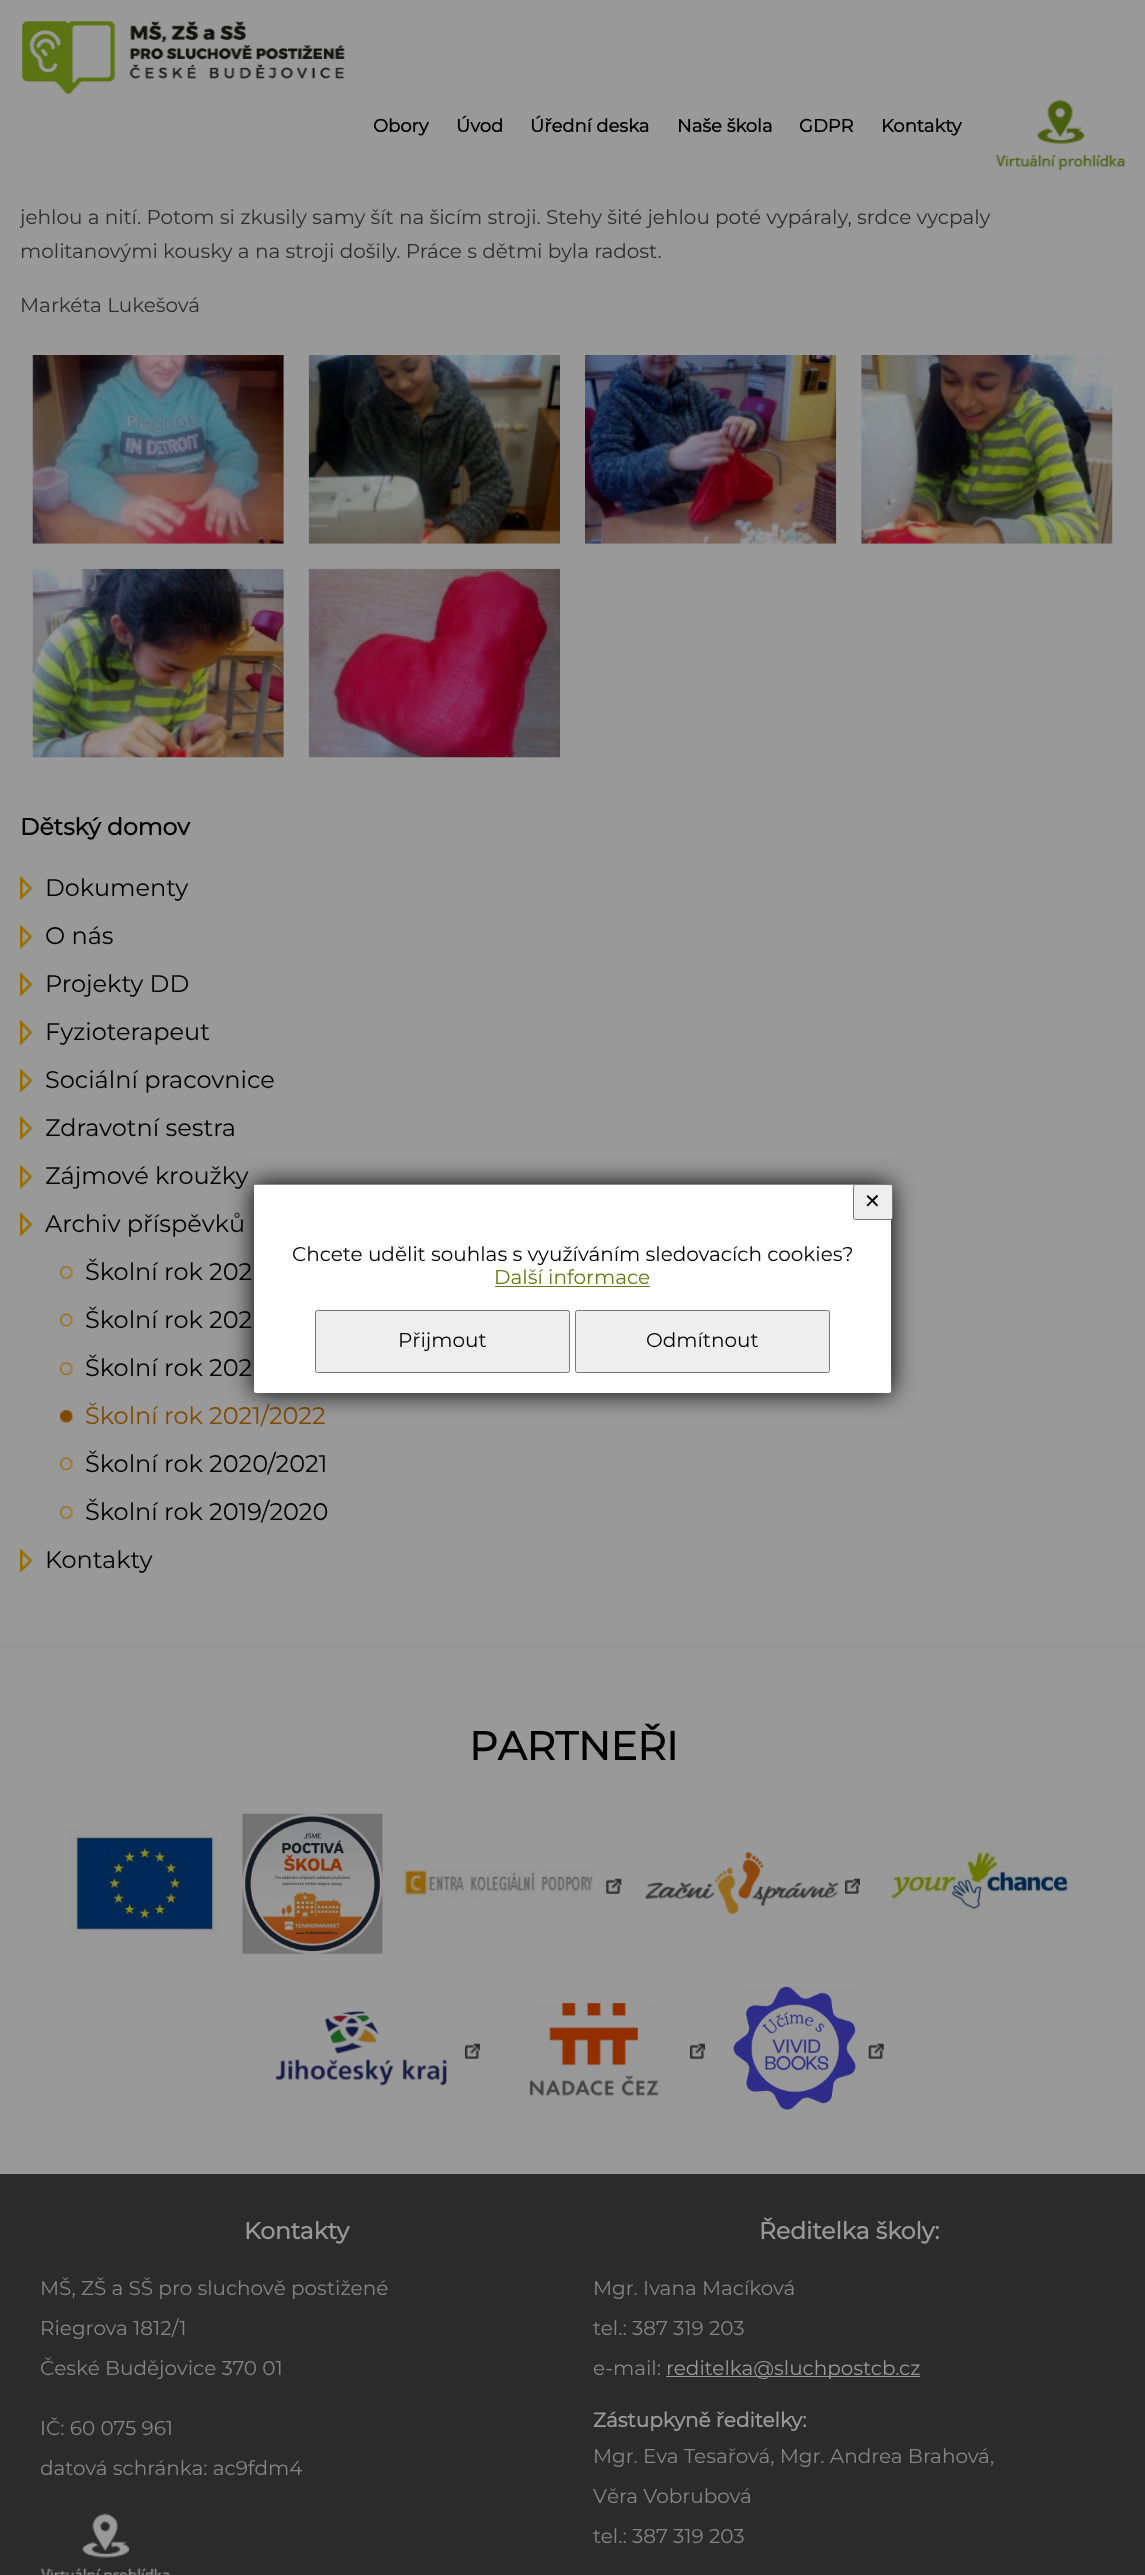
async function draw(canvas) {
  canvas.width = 1145
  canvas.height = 2575
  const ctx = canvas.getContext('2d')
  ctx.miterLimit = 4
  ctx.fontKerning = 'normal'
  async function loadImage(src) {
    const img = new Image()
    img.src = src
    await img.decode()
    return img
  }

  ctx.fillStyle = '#999'
  ctx.fillRect(0, 0, 1145, 2575)
  ctx.drawImage(await loadImage('image0.png'), 22, 21, 323, 73)
  ctx.font = 'bold 18px Montserrat'
  ctx.fillStyle = '#000'
  ctx.fillText('Obory', 373, 132)
  ctx.fillText('Úvod', 456, 132)
  ctx.fillText('Úřední deska', 530, 132)
  ctx.fillText('Naše škola', 677, 132)
  ctx.fillText('GDPR', 799, 132)
  ctx.fillText('Kontakty', 881, 132)
  ctx.drawImage(await loadImage('image1.png'), 996, 99, 129, 71)
  ctx.save()
  ctx.beginPath()
  ctx.rect(20, 64, 1105, 725)
  ctx.clip()
  ctx.font = '100 20px Montserrat'
  ctx.fillStyle = '#2e2e2e'
  ctx.fillText('jehlou a nití. Potom si zkusily samy šít na šicím stroji. Stehy šité jehlou poté vypáraly, srdce vycpaly', 20, 224)
  ctx.restore()
  ctx.font = '100 20px Montserrat'
  ctx.fillStyle = '#2e2e2e'
  ctx.fillText('molitanovými kousky a na stroji došily. Práce s dětmi byla radost.', 20, 258)
  ctx.fillText('Markéta Lukešová', 20, 312)
  ctx.drawImage(await loadImage('image2.png'), 32, 355, 252, 189)
  ctx.drawImage(await loadImage('image3.png'), 308, 355, 252, 189)
  ctx.drawImage(await loadImage('image4.png'), 585, 355, 252, 189)
  ctx.drawImage(await loadImage('image5.png'), 861, 355, 252, 189)
  ctx.drawImage(await loadImage('image6.png'), 32, 568, 252, 190)
  ctx.drawImage(await loadImage('image7.png'), 308, 568, 252, 190)
  ctx.font = 'bold 23.5px Montserrat'
  ctx.fillStyle = '#000'
  ctx.fillText('Dětský domov', 20, 835)
  ctx.drawImage(await loadImage('image8.png'), 20, 876, 13, 24)
  ctx.font = '100 24px Montserrat'
  ctx.fillText('Dokumenty', 45, 896)
  ctx.drawImage(await loadImage('image9.png'), 20, 925, 13, 24)
  ctx.fillText('O nás', 45, 944)
  ctx.drawImage(await loadImage('image10.png'), 20, 972, 13, 25)
  ctx.fillText('Projekty DD', 45, 992)
  ctx.drawImage(await loadImage('image11.png'), 20, 1020, 13, 25)
  ctx.fillText('Fyzioterapeut', 45, 1040)
  ctx.drawImage(await loadImage('image12.png'), 20, 1068, 13, 25)
  ctx.fillText('Sociální pracovnice', 45, 1088)
  ctx.drawImage(await loadImage('image8.png'), 20, 1116, 13, 24)
  ctx.fillText('Zdravotní sestra', 45, 1136)
  ctx.drawImage(await loadImage('image9.png'), 20, 1165, 13, 24)
  ctx.fillText('Zájmové kroužky', 45, 1184)
  ctx.drawImage(await loadImage('image10.png'), 20, 1212, 13, 25)
  ctx.fillText('Archiv příspěvků', 45, 1232)
  ctx.drawImage(await loadImage('image13.png'), 60, 1266, 13, 13)
  ctx.fillText('Školní rok 202', 85, 1280)
  ctx.drawImage(await loadImage('image14.png'), 60, 1313, 13, 14)
  ctx.fillText('Školní rok 202', 85, 1328)
  ctx.drawImage(await loadImage('image15.png'), 60, 1362, 13, 13)
  ctx.fillText('Školní rok 202', 85, 1376)
  ctx.drawImage(await loadImage('image16.png'), 60, 1410, 13, 13)
  ctx.fillStyle = '#804900'
  ctx.fillText('Školní rok 2021/2022', 85, 1424)
  ctx.drawImage(await loadImage('image15.png'), 60, 1457, 13, 13)
  ctx.fillStyle = '#000'
  ctx.fillText('Školní rok 2020/2021', 85, 1472)
  ctx.drawImage(await loadImage('image13.png'), 60, 1506, 13, 13)
  ctx.fillText('Školní rok 2019/2020', 85, 1520)
  ctx.drawImage(await loadImage('image12.png'), 20, 1548, 13, 25)
  ctx.fillText('Kontakty', 45, 1568)
  ctx.fillStyle = '#969696'
  ctx.fillRect(0, 1644, 1145, 4)
  ctx.font = 'bold 40px Montserrat'
  ctx.fillStyle = '#000'
  ctx.fillText('PARTNEŘI', 469, 1760)
  ctx.drawImage(await loadImage('image17.png'), 65, 1828, 156, 110)
  ctx.drawImage(await loadImage('image18.png'), 242, 1813, 141, 141)
  ctx.drawImage(await loadImage('image19.png'), 606, 1878, 16, 16)
  ctx.drawImage(await loadImage('image20.png'), 402, 1868, 191, 30)
  ctx.drawImage(await loadImage('image21.png'), 845, 1878, 15, 16)
  ctx.drawImage(await loadImage('image22.png'), 645, 1851, 194, 64)
  ctx.drawImage(await loadImage('image23.png'), 889, 1848, 183, 63)
  ctx.drawImage(await loadImage('image24.png'), 465, 2043, 15, 16)
  ctx.drawImage(await loadImage('image25.png'), 275, 2011, 173, 75)
  ctx.drawImage(await loadImage('image24.png'), 690, 2043, 15, 16)
  ctx.drawImage(await loadImage('image26.png'), 529, 2003, 130, 93)
  ctx.drawImage(await loadImage('image27.png'), 868, 2043, 16, 16)
  ctx.drawImage(await loadImage('image28.png'), 733, 1986, 123, 124)
  ctx.fillStyle = '#2b2b2b'
  ctx.fillRect(0, 2174, 1145, 401)
  ctx.font = 'bold 23.5px Montserrat'
  ctx.fillStyle = '#999'
  ctx.fillText('Kontakty', 244, 2239)
  ctx.font = '100 20px Montserrat'
  ctx.fillStyle = '#858585'
  ctx.fillText('MŠ, ZŠ a SŠ pro sluchově postižené', 40, 2295)
  ctx.fillText('Riegrova 1812/1', 40, 2335)
  ctx.fillText('České Budějovice 370 01', 40, 2375)
  ctx.fillText('IČ: 60 075 961', 40, 2435)
  ctx.fillText('datová schránka: ac9fdm4', 40, 2475)
  ctx.drawImage(await loadImage('image29.png'), 41, 2513, 129, 62)
  ctx.font = 'bold 23.5px Montserrat'
  ctx.fillStyle = '#999'
  ctx.fillText('Ředitelka školy:', 759, 2239)
  ctx.font = '100 20px Montserrat'
  ctx.fillStyle = '#858585'
  ctx.fillText('Mgr. Ivana Macíková', 593, 2295)
  ctx.fillText('tel.: 387 319 203', 593, 2335)
  ctx.fillText('e-mail:', 593, 2375)
  ctx.fillStyle = '#999'
  ctx.fillRect(666, 2376, 254, 1)
  ctx.fillText('reditelka@sluchpostcb.cz', 666, 2375)
  ctx.font = 'bold 20px Montserrat'
  ctx.fillText('Zástupkyně ředitelky:', 593, 2427)
  ctx.font = '100 20px Montserrat'
  ctx.fillStyle = '#858585'
  ctx.fillText('Mgr. Eva Tesařová, Mgr. Andrea Brahová,', 593, 2463)
  ctx.fillText('Věra Vobrubová', 593, 2503)
  ctx.fillText('tel.: 387 319 203', 593, 2543)
  ctx.fillStyle = '#000'
  ctx.filter = 'blur(12.5px)'
  ctx.beginPath()
  ctx.roundRect(254, 1184, 637, 209, 2.5)
  ctx.fill()
  ctx.filter = 'none'
  ctx.fillStyle = '#fff'
  ctx.beginPath()
  ctx.roundRect(254, 1184, 637, 209, 2.5)
  ctx.fill()
  ctx.fillStyle = '#888'
  ctx.fillRect(255, 1184, 601, 1)
  ctx.fillStyle = '#eee'
  ctx.beginPath()
  ctx.roundRect(853.5, 1184.5, 39, 35, 2)
  ctx.fill()
  ctx.strokeStyle = '#777'
  ctx.stroke()
  ctx.font = '20px DejaVu Sans'
  ctx.fillStyle = '#000'
  ctx.fillText('✕', 864, 1208)
  ctx.font = '100 20px Montserrat'
  ctx.fillText('Chcete udělit souhlas s využíváním sledovacích cookies?', 292, 1261)
  ctx.fillStyle = '#627d17'
  ctx.fillText('Další informace', 494, 1284)
  ctx.fillRect(495, 1286, 155, 1)
  ctx.fillStyle = '#eee'
  ctx.beginPath()
  ctx.roundRect(315.5, 1310.5, 254, 62, 2)
  ctx.fill()
  ctx.stroke()
  ctx.fillStyle = '#000'
  ctx.fillText('Přijmout', 398, 1347)
  ctx.fillStyle = '#eee'
  ctx.beginPath()
  ctx.roundRect(575.5, 1310.5, 254, 62, 2)
  ctx.fill()
  ctx.stroke()
  ctx.fillStyle = '#000'
  ctx.fillText('Odmítnout', 646, 1347)
}

draw(document.querySelector('canvas'))
